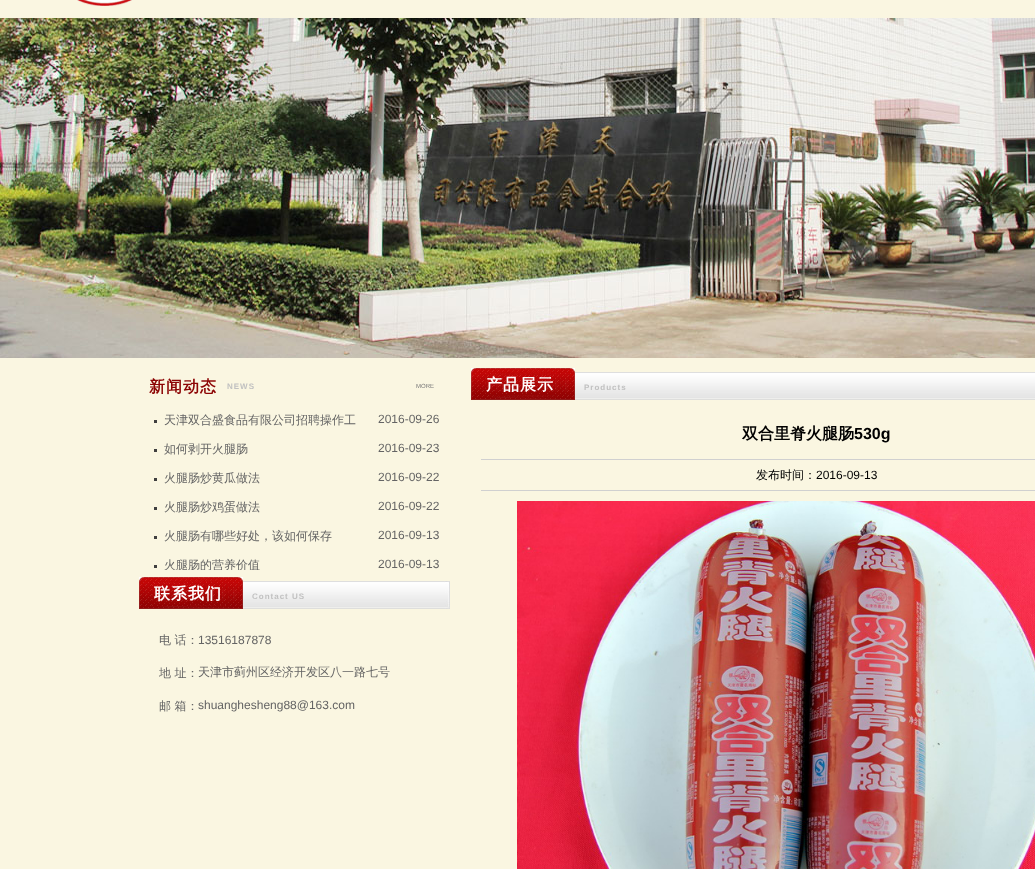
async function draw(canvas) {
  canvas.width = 1035
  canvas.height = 869
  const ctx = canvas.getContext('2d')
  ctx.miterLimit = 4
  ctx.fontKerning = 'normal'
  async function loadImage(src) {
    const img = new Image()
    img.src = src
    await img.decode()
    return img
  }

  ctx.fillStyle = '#faf6e1'
  ctx.fillRect(0, 0, 1035, 869)
  ctx.drawImage(await loadImage('image0.png'), 77, 0, 55, 6)
  ctx.drawImage(await loadImage('image1.png'), 0, 18, 1035, 340)
  ctx.letterSpacing = '1px'
  ctx.font = 'bold 16px WenQuanYi Zen Hei'
  ctx.fillStyle = '#8c0404'
  ctx.fillText('新闻动态', 149, 392)
  ctx.font = 'bold 8px Liberation Sans'
  ctx.fillStyle = '#c1c1c1'
  ctx.fillText('NEWS', 227, 389)
  ctx.letterSpacing = '0px'
  ctx.font = '6px Liberation Sans'
  ctx.fillStyle = '#797979'
  ctx.fillText('MORE', 416, 388)
  ctx.fillStyle = '#3f3f3f'
  ctx.fillRect(154, 420, 3, 3)
  ctx.font = '500 12px WenQuanYi Zen Hei'
  ctx.fillStyle = '#646464'
  ctx.fillText('天津双合盛食品有限公司招聘操作工', 164, 424)
  ctx.font = '12px Liberation Sans'
  ctx.fillText('2016-09-26', 378, 423)
  ctx.fillStyle = '#3f3f3f'
  ctx.fillRect(154, 449, 3, 3)
  ctx.font = '500 12px WenQuanYi Zen Hei'
  ctx.fillStyle = '#646464'
  ctx.fillText('如何剥开火腿肠', 164, 453)
  ctx.font = '12px Liberation Sans'
  ctx.fillText('2016-09-23', 378, 452)
  ctx.fillStyle = '#3f3f3f'
  ctx.fillRect(154, 478, 3, 3)
  ctx.font = '500 12px WenQuanYi Zen Hei'
  ctx.fillStyle = '#646464'
  ctx.fillText('火腿肠炒黄瓜做法', 164, 482)
  ctx.font = '12px Liberation Sans'
  ctx.fillText('2016-09-22', 378, 481)
  ctx.fillStyle = '#3f3f3f'
  ctx.fillRect(154, 507, 3, 3)
  ctx.font = '500 12px WenQuanYi Zen Hei'
  ctx.fillStyle = '#646464'
  ctx.fillText('火腿肠炒鸡蛋做法', 164, 511)
  ctx.font = '12px Liberation Sans'
  ctx.fillText('2016-09-22', 378, 510)
  ctx.fillStyle = '#3f3f3f'
  ctx.fillRect(154, 536, 3, 3)
  ctx.font = '500 12px WenQuanYi Zen Hei'
  ctx.fillStyle = '#646464'
  ctx.fillText('火腿肠有哪些好处，该如何保存', 164, 540)
  ctx.font = '12px Liberation Sans'
  ctx.fillText('2016-09-13', 378, 539)
  ctx.fillStyle = '#3f3f3f'
  ctx.fillRect(154, 565, 3, 3)
  ctx.save()
  ctx.beginPath()
  ctx.rect(139, 358, 315, 212)
  ctx.clip()
  ctx.font = '500 12px WenQuanYi Zen Hei'
  ctx.fillStyle = '#646464'
  ctx.fillText('火腿肠的营养价值', 164, 569)
  ctx.restore()
  ctx.fillStyle = '#646464'
  ctx.fillText('2016-09-13', 378, 568)
  ctx.drawImage(await loadImage('image2.png'), 139, 577, 311, 32)
  ctx.letterSpacing = '1px'
  ctx.font = 'bold 16px WenQuanYi Zen Hei'
  ctx.fillStyle = '#fff'
  ctx.fillText('联系我们', 154, 599)
  ctx.font = 'bold 8px Liberation Sans'
  ctx.fillStyle = '#c1c1c1'
  ctx.fillText('Contact US', 252, 599)
  ctx.letterSpacing = '0px'
  ctx.font = '500 12px WenQuanYi Zen Hei'
  ctx.fillStyle = '#646464'
  ctx.fillText('电 话：', 159, 644)
  ctx.fillText('地 址：', 159, 677)
  ctx.fillText('邮 箱：', 159, 710)
  ctx.font = '12px Liberation Sans'
  ctx.fillText('13516187878', 198, 644)
  ctx.font = '500 12px WenQuanYi Zen Hei'
  ctx.fillText('天津市蓟州区经济开发区八一路七号', 198, 676)
  ctx.font = '12px Liberation Sans'
  ctx.fillText('shuanghesheng88@163.com', 198, 709)
  ctx.drawImage(await loadImage('image3.png'), 471, 368, 564, 32)
  ctx.letterSpacing = '1px'
  ctx.font = 'bold 16px WenQuanYi Zen Hei'
  ctx.fillStyle = '#fff'
  ctx.fillText('产品展示', 486, 390)
  ctx.font = 'bold 8px Liberation Sans'
  ctx.fillStyle = '#c1c1c1'
  ctx.fillText('Products', 584, 390)
  ctx.letterSpacing = '0px'
  ctx.font = 'bold 16px WenQuanYi Zen Hei'
  ctx.fillStyle = '#000'
  ctx.fillText('双合里脊火腿肠', 742, 439)
  ctx.font = 'bold 16px Liberation Sans'
  ctx.fillText('530g', 854, 439)
  ctx.fillStyle = '#d0d0d0'
  ctx.fillRect(481, 459, 554, 1)
  ctx.fillRect(481, 490, 554, 1)
  ctx.font = '500 12px WenQuanYi Zen Hei'
  ctx.fillStyle = '#000'
  ctx.fillText('发布时间：', 756, 479)
  ctx.font = '12px Liberation Sans'
  ctx.fillText('2016-09-13', 816, 479)
  ctx.drawImage(await loadImage('image4.png'), 517, 501, 518, 368)
}

draw(document.querySelector('canvas'))
